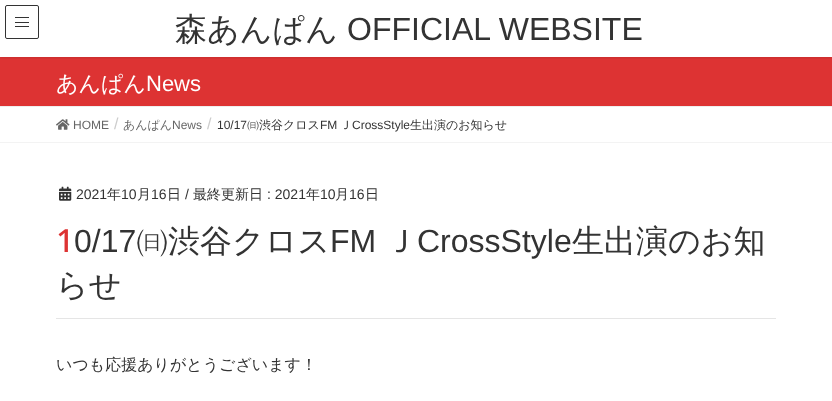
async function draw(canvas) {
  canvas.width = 832
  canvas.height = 401
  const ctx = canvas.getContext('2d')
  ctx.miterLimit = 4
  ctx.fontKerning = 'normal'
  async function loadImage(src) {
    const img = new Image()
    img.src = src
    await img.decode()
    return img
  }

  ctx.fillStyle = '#fff'
  ctx.fillRect(0, 0, 832, 401)
  ctx.fillStyle = '#d33'
  ctx.fillRect(0, 57, 832, 49)
  ctx.save()
  ctx.beginPath()
  ctx.rect(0, 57, 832, 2)
  ctx.clip()
  ctx.fillStyle = '#0000001a'
  ctx.filter = 'blur(1.5px)'
  ctx.beginPath()
  ctx.rect(0, 1, 832, 57)
  ctx.fill()
  ctx.filter = 'none'
  ctx.restore()
  ctx.fillStyle = '#333'
  ctx.fillRect(15, 17, 14, 1)
  ctx.fillRect(15, 22, 14, 1)
  ctx.fillRect(15, 26, 14, 1)
  ctx.beginPath()
  ctx.roundRect(5.5, 5.5, 33, 33, 1.5)
  ctx.strokeStyle = '#333'
  ctx.stroke()
  ctx.font = '500 32px WenQuanYi Zen Hei'
  ctx.fillText('森あんぱん', 175, 40)
  ctx.font = '32px Liberation Sans'
  ctx.fillText('OFFICIAL WEBSITE', 347, 40)
  ctx.fillStyle = '#eee'
  ctx.fillRect(0, 106, 832, 1)
  ctx.font = '500 22px WenQuanYi Zen Hei'
  ctx.fillStyle = '#fff'
  ctx.fillText('あんぱん', 56, 91)
  ctx.font = '22px Liberation Sans'
  ctx.fillText('News', 146, 91)
  ctx.fillStyle = '#f3f3f3'
  ctx.fillRect(0, 142, 832, 1)
  ctx.drawImage(await loadImage('image0.png'), 56, 119, 14, 11)
  ctx.font = '12px Liberation Sans'
  ctx.fillStyle = '#666'
  ctx.fillText('HOME', 73, 129)
  ctx.font = '16px Liberation Sans'
  ctx.fillStyle = '#ccc'
  ctx.fillText('/', 114, 129)
  ctx.font = '500 12px WenQuanYi Zen Hei'
  ctx.fillStyle = '#666'
  ctx.fillText('あんぱん', 123, 129)
  ctx.font = '12px Liberation Sans'
  ctx.fillText('News', 172, 129)
  ctx.font = '16px Liberation Sans'
  ctx.fillStyle = '#ccc'
  ctx.fillText('/', 207, 129)
  ctx.font = '12px Liberation Sans'
  ctx.fillStyle = '#333'
  ctx.fillText('10/17', 217, 129)
  ctx.font = '500 12px WenQuanYi Zen Hei'
  ctx.fillText('㈰渋谷クロス', 247, 129)
  ctx.font = '12px Liberation Sans'
  ctx.fillText('FM', 320, 129)
  ctx.font = '500 12px WenQuanYi Zen Hei'
  ctx.fillText('Ｊ', 340, 129)
  ctx.font = '12px Liberation Sans'
  ctx.fillText('CrossStyle', 352, 129)
  ctx.font = '500 12px WenQuanYi Zen Hei'
  ctx.fillText('生出演のお知らせ', 410, 129)
  ctx.fillStyle = '#e5e5e5'
  ctx.fillRect(56, 318, 720, 1)
  ctx.drawImage(await loadImage('image1.png'), 59, 186, 13, 15)
  ctx.font = '14px Liberation Sans'
  ctx.fillStyle = '#333'
  ctx.fillText('2021', 76, 199)
  ctx.font = '500 14px WenQuanYi Zen Hei'
  ctx.fillText('年', 107, 199)
  ctx.font = '14px Liberation Sans'
  ctx.fillText('10', 121, 199)
  ctx.font = '500 14px WenQuanYi Zen Hei'
  ctx.fillText('月', 137, 199)
  ctx.font = '14px Liberation Sans'
  ctx.fillText('16', 151, 199)
  ctx.font = '500 14px WenQuanYi Zen Hei'
  ctx.fillText('日', 167, 199)
  ctx.font = '14px Liberation Sans'
  ctx.fillText('/', 185, 199)
  ctx.font = '500 14px WenQuanYi Zen Hei'
  ctx.fillText('最終更新日', 193, 199)
  ctx.font = '14px Liberation Sans'
  ctx.fillText(': 2021', 267, 199)
  ctx.font = '500 14px WenQuanYi Zen Hei'
  ctx.fillText('年', 306, 199)
  ctx.font = '14px Liberation Sans'
  ctx.fillText('10', 320, 199)
  ctx.font = '500 14px WenQuanYi Zen Hei'
  ctx.fillText('月', 335, 199)
  ctx.font = '14px Liberation Sans'
  ctx.fillText('16', 349, 199)
  ctx.font = '500 14px WenQuanYi Zen Hei'
  ctx.fillText('日', 365, 199)
  ctx.font = '500 32px Noto Sans'
  ctx.fillStyle = '#d33'
  ctx.fillText('1', 56, 252)
  ctx.font = '32px Liberation Sans'
  ctx.fillStyle = '#333'
  ctx.fillText('0/17', 74, 252)
  ctx.font = '500 32px WenQuanYi Zen Hei'
  ctx.fillText('㈰渋谷クロス', 136, 252)
  ctx.font = '32px Liberation Sans'
  ctx.fillText('FM', 330, 252)
  ctx.font = '500 32px WenQuanYi Zen Hei'
  ctx.fillText('Ｊ', 385, 252)
  ctx.font = '32px Liberation Sans'
  ctx.fillText('CrossStyle', 417, 252)
  ctx.font = '500 32px WenQuanYi Zen Hei'
  ctx.fillText('生出演のお知', 572, 252)
  ctx.fillText('らせ', 56, 296)
  ctx.font = '500 16px WenQuanYi Zen Hei'
  ctx.fillText('いつも応援ありがとうございます！', 56, 370)
}

draw(document.querySelector('canvas'))
